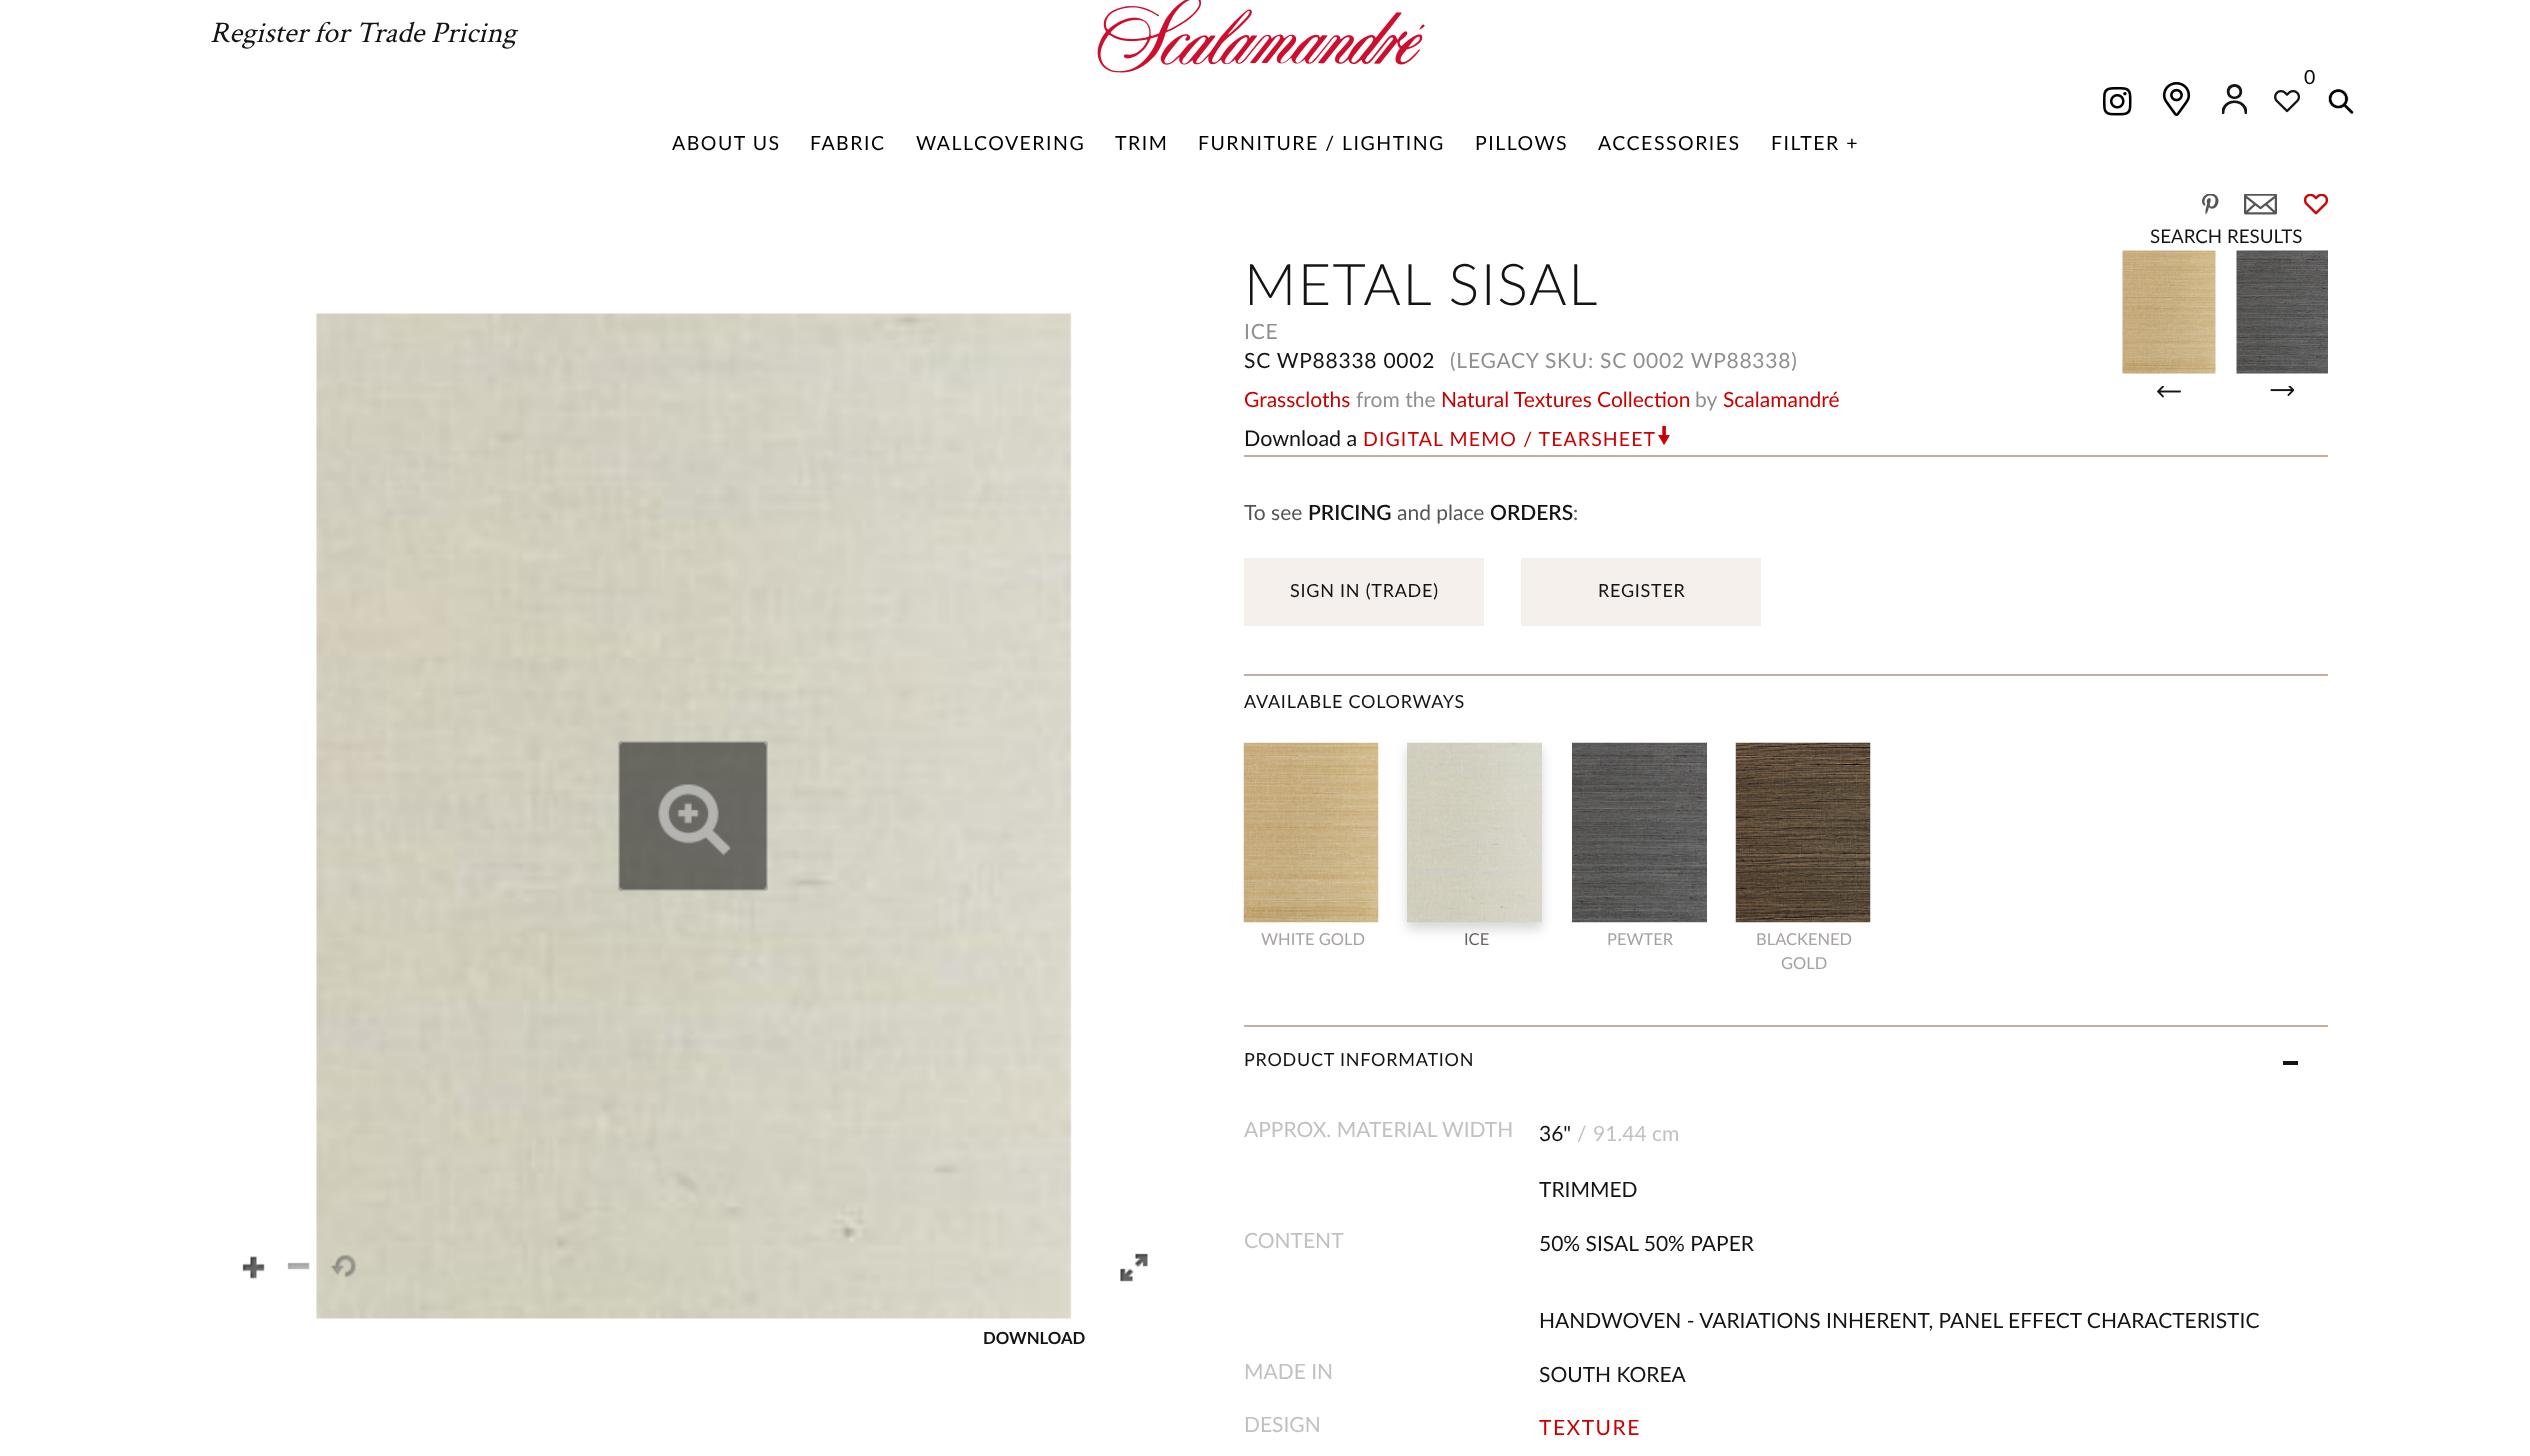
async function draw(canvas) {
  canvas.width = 2530
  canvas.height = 1456
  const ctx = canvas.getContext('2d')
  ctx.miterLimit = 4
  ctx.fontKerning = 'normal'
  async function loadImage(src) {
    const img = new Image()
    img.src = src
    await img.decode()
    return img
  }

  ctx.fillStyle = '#fff'
  ctx.fillRect(0, 0, 2530, 1456)
  ctx.font = 'italic 30px Crimson Text'
  ctx.fillStyle = '#141414'
  ctx.fillText('Register for Trade Pricing', 210, 42)
  ctx.drawImage(await loadImage('image0.png'), 1097, 0, 328, 73)
  ctx.drawImage(await loadImage('image1.png'), 2274, 90, 26, 23)
  ctx.font = '19.5px Lato'
  ctx.fillStyle = '#000'
  ctx.fillText('0', 2304, 84)
  ctx.drawImage(await loadImage('image2.png'), 2103, 87, 29, 29)
  ctx.drawImage(await loadImage('image3.png'), 2162, 81, 29, 35)
  ctx.save()
  ctx.beginPath()
  ctx.rect(2222, 84, 25, 30)
  ctx.clip()
  ctx.fillStyle = '#141414'
  ctx.beginPath()
  ctx.moveTo(2234.5, 99)
  ctx.bezierCurveTo(2244.5, 99.5, 2245, 84, 2234.5, 84)
  ctx.bezierCurveTo(2224, 84, 2224.5, 99.5, 2234.5, 99)
  ctx.closePath()
  ctx.moveTo(2234.5, 96.5)
  ctx.bezierCurveTo(2228, 96.5, 2228, 87, 2234.5, 87)
  ctx.bezierCurveTo(2241, 87, 2241, 96.5, 2234.5, 96.5)
  ctx.closePath()
  ctx.moveTo(2247.5, 112.5)
  ctx.bezierCurveTo(2247.5, 105.5, 2241.5, 100, 2234.5, 100.5)
  ctx.bezierCurveTo(2227.5, 100, 2221.5, 105.5, 2221.5, 112.5)
  ctx.bezierCurveTo(2221.5, 113.5, 2222, 114, 2223, 114)
  ctx.bezierCurveTo(2223.5, 114, 2224.5, 113.5, 2224.5, 112.5)
  ctx.bezierCurveTo(2224.5, 107, 2229, 103, 2234.5, 103)
  ctx.bezierCurveTo(2240, 103, 2244.5, 107, 2244.5, 112.5)
  ctx.bezierCurveTo(2244.5, 113.5, 2245.5, 114, 2246, 114)
  ctx.bezierCurveTo(2247, 114, 2247.5, 113.5, 2247.5, 112.5)
  ctx.closePath()
  ctx.fill('evenodd')
  ctx.restore()
  ctx.drawImage(await loadImage('image4.png'), 2328, 89, 26, 26)
  ctx.letterSpacing = '1.5px'
  ctx.fillText('ABOUT US', 672, 150)
  ctx.fillText('FABRIC', 810, 150)
  ctx.fillText('WALLCOVERING', 916, 150)
  ctx.fillText('TRIM', 1115, 150)
  ctx.fillText('FURNITURE / LIGHTING', 1198, 150)
  ctx.fillText('PILLOWS', 1475, 150)
  ctx.fillText('ACCESSORIES', 1598, 150)
  ctx.fillText('FILTER +', 1771, 150)
  ctx.drawImage(await loadImage('image5.png'), 316, 313, 756, 1006)
  ctx.drawImage(await loadImage('image6.png'), 618, 741, 150, 150)
  ctx.drawImage(await loadImage('image7.png'), 242, 1256, 23, 23)
  ctx.drawImage(await loadImage('image8.png'), 287, 1262, 23, 8)
  ctx.drawImage(await loadImage('image9.png'), 331, 1254, 25, 24)
  ctx.drawImage(await loadImage('image10.png'), 1120, 1253, 28, 29)
  ctx.letterSpacing = '0px'
  ctx.font = 'bold 16.75px Lato'
  ctx.fillStyle = '#141414'
  ctx.fillText('DOWNLOAD', 983, 1344)
  ctx.fillStyle = '#c4aea2'
  ctx.fillRect(1244, 455, 1084, 2)
  ctx.drawImage(await loadImage('image11.png'), 2202, 194, 17, 21)
  ctx.drawImage(await loadImage('image12.png'), 2244, 194, 33, 21)
  ctx.drawImage(await loadImage('image13.png'), 2304, 194, 24, 21)
  ctx.font = '18.75px Lato'
  ctx.fillStyle = '#141414'
  ctx.fillText('SEARCH RESULTS', 2150, 243)
  ctx.drawImage(await loadImage('image14.png'), 2122, 250, 94, 124)
  ctx.drawImage(await loadImage('image15.png'), 2157, 386, 24, 12)
  ctx.drawImage(await loadImage('image16.png'), 2236, 250, 92, 124)
  ctx.drawImage(await loadImage('image17.png'), 2270, 386, 24, 10)
  ctx.letterSpacing = '1.5px'
  ctx.font = '300 57.5px Lato'
  ctx.fillText('METAL SISAL', 1244, 305)
  ctx.letterSpacing = '0.75px'
  ctx.font = '21px Lato'
  ctx.fillStyle = '#8f8f8f'
  ctx.fillText('ICE', 1244, 339)
  ctx.fillStyle = '#141414'
  ctx.fillText('SC WP88338 0002', 1244, 368)
  ctx.fillStyle = '#8f8f8f'
  ctx.fillText('(LEGACY SKU: SC 0002 WP88338)', 1450, 368)
  ctx.letterSpacing = '0px'
  ctx.fillStyle = '#c00'
  ctx.fillText('Grasscloths', 1244, 407)
  ctx.fillStyle = '#8f8f8f'
  ctx.fillText('from the', 1356, 407)
  ctx.fillStyle = '#c00'
  ctx.fillText('Natural Textures Collection', 1441, 407)
  ctx.fillStyle = '#8f8f8f'
  ctx.fillText('by', 1695, 407)
  ctx.fillStyle = '#c00'
  ctx.fillText('Scalamandré', 1723, 407)
  ctx.font = '21.5px Lato'
  ctx.fillStyle = '#141414'
  ctx.fillText('Download a', 1244, 446)
  ctx.letterSpacing = '1.1px'
  ctx.font = '19.5px Lato'
  ctx.fillStyle = '#c00'
  ctx.fillText('DIGITAL MEMO / TEARSHEET', 1363, 446)
  ctx.drawImage(await loadImage('image18.png'), 1658, 426, 12, 19)
  ctx.letterSpacing = '0px'
  ctx.font = '21px Lato'
  ctx.fillStyle = '#555'
  ctx.fillText('To see', 1244, 520)
  ctx.font = '600 21px Lato'
  ctx.fillStyle = '#141414'
  ctx.fillText('PRICING', 1308, 520)
  ctx.font = '21px Lato'
  ctx.fillStyle = '#555'
  ctx.fillText('and place', 1397, 520)
  ctx.font = '600 21px Lato'
  ctx.fillStyle = '#141414'
  ctx.fillText('ORDERS', 1490, 520)
  ctx.font = '21px Lato'
  ctx.fillStyle = '#555'
  ctx.fillText(':', 1573, 520)
  ctx.fillStyle = '#f5f0ec'
  ctx.fillRect(1244, 558, 240, 68)
  ctx.letterSpacing = '0.75px'
  ctx.font = '18px Lato'
  ctx.fillStyle = '#141414'
  ctx.fillText('SIGN IN (TRADE)', 1290, 597)
  ctx.fillStyle = '#f5f0ec'
  ctx.fillRect(1521, 558, 240, 68)
  ctx.fillStyle = '#141414'
  ctx.fillText('REGISTER', 1598, 597)
  ctx.fillStyle = '#c4aea2'
  ctx.fillRect(1244, 674, 1084, 2)
  ctx.fillStyle = '#141414'
  ctx.fillText('AVAILABLE COLORWAYS', 1244, 708)
  ctx.drawImage(await loadImage('image19.png'), 1243, 742, 136, 181)
  ctx.letterSpacing = '0px'
  ctx.font = '16.5px Lato'
  ctx.fillStyle = '#a7a1a1'
  ctx.fillText('WHITE GOLD', 1261, 945)
  ctx.fillStyle = '#00000029'
  ctx.filter = 'blur(6px)'
  ctx.beginPath()
  ctx.rect(1407, 749, 135, 180)
  ctx.fill()
  ctx.filter = 'none'
  ctx.drawImage(await loadImage('image20.png'), 1407, 742, 135, 181)
  ctx.fillStyle = '#6c6363'
  ctx.fillText('ICE', 1464, 945)
  ctx.drawImage(await loadImage('image21.png'), 1572, 742, 135, 181)
  ctx.fillStyle = '#a7a1a1'
  ctx.fillText('PEWTER', 1607, 945)
  ctx.drawImage(await loadImage('image22.png'), 1735, 742, 136, 181)
  ctx.fillText('BLACKENED', 1756, 945)
  ctx.fillText('GOLD', 1781, 969)
  ctx.fillStyle = '#c4aea2'
  ctx.fillRect(1244, 1025, 1084, 2)
  ctx.letterSpacing = '0.75px'
  ctx.font = '18px Lato'
  ctx.fillStyle = '#141414'
  ctx.fillText('PRODUCT INFORMATION', 1244, 1066)
  ctx.fillRect(2283, 1061, 15, 4)
  ctx.letterSpacing = '0px'
  ctx.font = '21px Lato'
  ctx.fillStyle = '#c1c1c1'
  ctx.fillText('APPROX. MATERIAL WIDTH', 1244, 1137)
  ctx.fillStyle = '#141414'
  ctx.fillText('36"', 1539, 1141)
  ctx.fillStyle = '#c1c1c1'
  ctx.fillText('/', 1577, 1141)
  ctx.fillText('91.44 cm', 1593, 1141)
  ctx.fillStyle = '#141414'
  ctx.fillText('TRIMMED', 1539, 1197)
  ctx.fillStyle = '#c1c1c1'
  ctx.fillText('CONTENT', 1244, 1248)
  ctx.fillStyle = '#141414'
  ctx.fillText('50% SISAL 50% PAPER', 1539, 1251)
  ctx.fillText('HANDWOVEN - VARIATIONS INHERENT, PANEL EFFECT CHARACTERISTIC', 1539, 1328)
  ctx.fillStyle = '#c1c1c1'
  ctx.fillText('MADE IN', 1244, 1379)
  ctx.fillStyle = '#141414'
  ctx.fillText('SOUTH KOREA', 1539, 1382)
  ctx.fillStyle = '#c1c1c1'
  ctx.fillText('DESIGN', 1244, 1432)
  ctx.letterSpacing = '1.5px'
  ctx.fillStyle = '#c00'
  ctx.fillText('TEXTURE', 1539, 1435)
}

draw(document.querySelector('canvas'))
